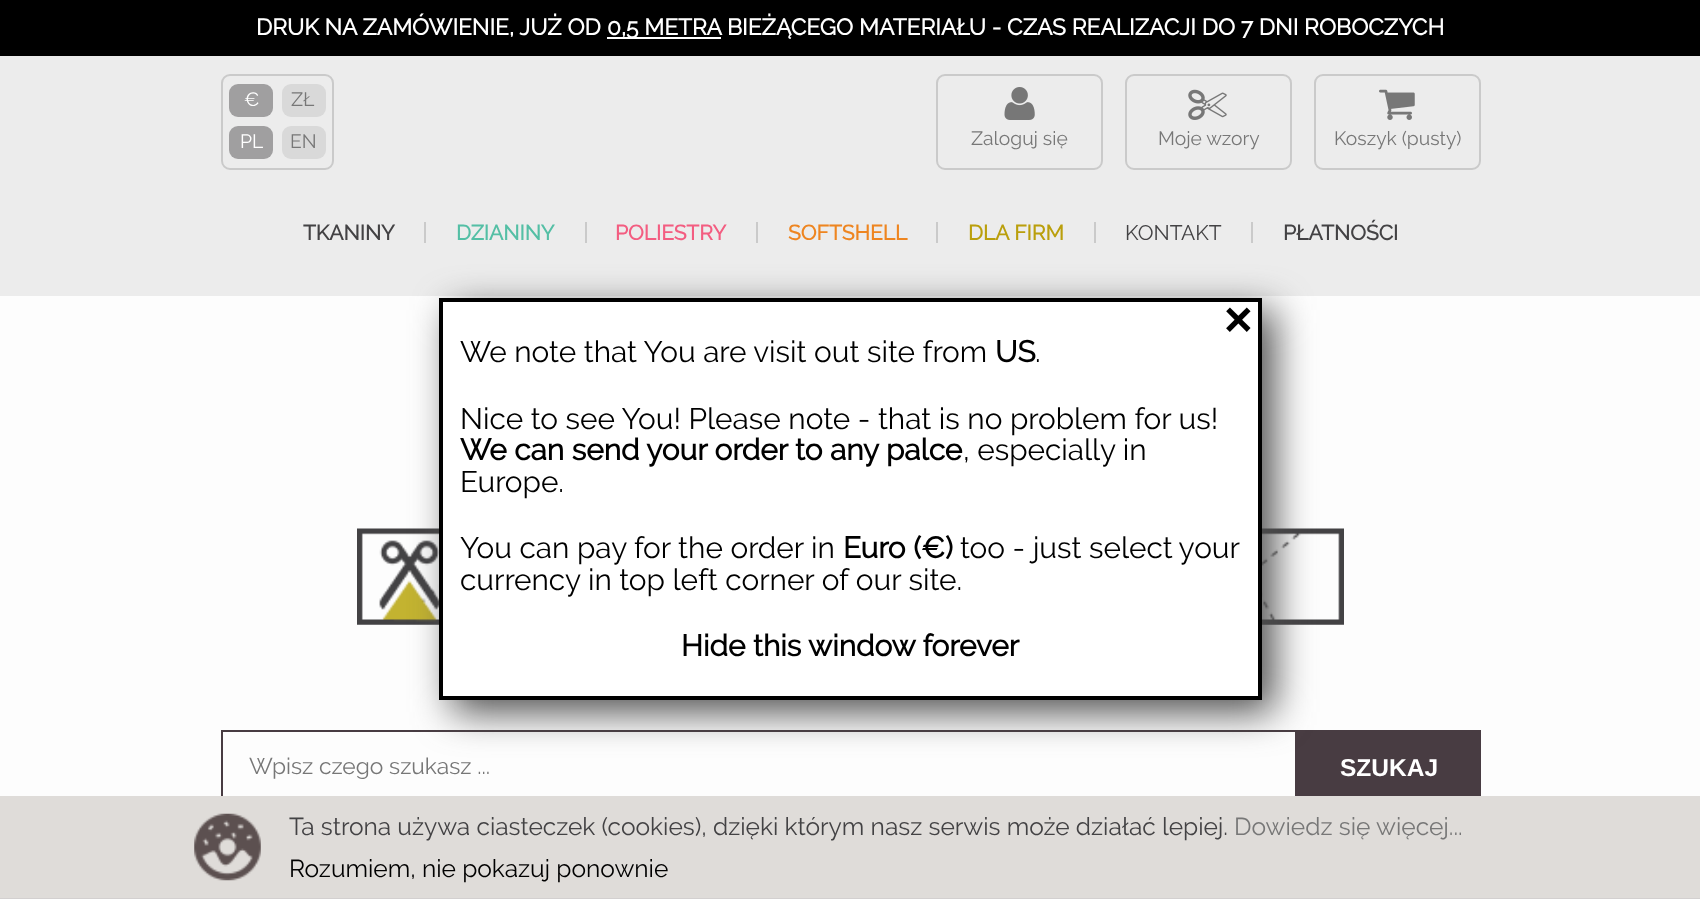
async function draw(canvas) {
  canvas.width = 1700
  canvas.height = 899
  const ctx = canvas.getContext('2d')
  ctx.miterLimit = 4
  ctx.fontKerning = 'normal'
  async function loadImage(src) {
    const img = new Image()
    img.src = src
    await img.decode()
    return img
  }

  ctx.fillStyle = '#fdfdfd'
  ctx.fillRect(0, 0, 1700, 899)
  ctx.fillStyle = '#000'
  ctx.fillRect(0, 0, 1700, 56)
  ctx.font = 'bold 22.75px Raleway'
  ctx.fillStyle = '#fff'
  ctx.fillText('DRUK NA ZAMÓWIENIE, JUŻ OD', 256, 35)
  ctx.fillRect(607, 37, 114, 2)
  ctx.fillText('0,5 METRA BIEŻĄCEGO MATERIAŁU - CZAS REALIZACJI DO 7 DNI ROBOCZYCH', 607, 35)
  ctx.fillStyle = '#ececec'
  ctx.fillRect(0, 56, 1700, 240)
  ctx.beginPath()
  ctx.roundRect(222, 75, 111, 94, 8)
  ctx.strokeStyle = '#cacaca'
  ctx.lineWidth = 2
  ctx.stroke()
  ctx.fillStyle = '#a09fa0'
  ctx.beginPath()
  ctx.roundRect(229, 84, 44, 33, 9)
  ctx.fill()
  ctx.font = '19.25px Raleway'
  ctx.fillStyle = '#fff'
  ctx.fillText('€', 244, 106)
  ctx.fillStyle = '#d9d9d9'
  ctx.beginPath()
  ctx.roundRect(282, 84, 44, 33, 9)
  ctx.fill()
  ctx.fillStyle = '#777'
  ctx.fillText('ZŁ', 291, 106)
  ctx.fillStyle = '#a09fa0'
  ctx.beginPath()
  ctx.roundRect(229, 126, 44, 33, 9)
  ctx.fill()
  ctx.fillStyle = '#fff'
  ctx.fillText('PL', 240, 148)
  ctx.fillStyle = '#d9d9d9'
  ctx.beginPath()
  ctx.roundRect(282, 126, 44, 33, 9)
  ctx.fill()
  ctx.fillStyle = '#777'
  ctx.fillText('EN', 290, 148)
  ctx.beginPath()
  ctx.roundRect(937, 75, 165, 94, 8)
  ctx.stroke()
  ctx.drawImage(await loadImage('image0.png'), 1004, 87, 31, 33)
  ctx.fillText('Zaloguj się', 971, 145)
  ctx.beginPath()
  ctx.roundRect(1126, 75, 165, 94, 8)
  ctx.stroke()
  ctx.drawImage(await loadImage('image1.png'), 1188, 89, 39, 31)
  ctx.fillText('Moje wzory', 1158, 145)
  ctx.beginPath()
  ctx.roundRect(1315, 75, 165, 94, 8)
  ctx.stroke()
  ctx.drawImage(await loadImage('image2.png'), 1379, 89, 36, 31)
  ctx.fillText('Koszyk (pusty)', 1334, 145)
  ctx.fillStyle = '#cacaca'
  ctx.fillRect(424, 222, 2, 21)
  ctx.font = 'bold 21px Raleway'
  ctx.fillStyle = '#434244'
  ctx.fillText('TKANINY', 303, 240)
  ctx.fillStyle = '#cacaca'
  ctx.fillRect(585, 222, 2, 21)
  ctx.fillStyle = '#54bfa5'
  ctx.fillText('DZIANINY', 456, 240)
  ctx.fillStyle = '#cacaca'
  ctx.fillRect(756, 222, 2, 21)
  ctx.fillStyle = '#f35d81'
  ctx.fillText('POLIESTRY', 615, 240)
  ctx.fillStyle = '#cacaca'
  ctx.fillRect(936, 222, 2, 21)
  ctx.fillStyle = '#ee8520'
  ctx.fillText('SOFTSHELL', 788, 240)
  ctx.fillStyle = '#cacaca'
  ctx.fillRect(1094, 222, 2, 21)
  ctx.fillStyle = '#ba9f0c'
  ctx.fillText('DLA FIRM', 968, 240)
  ctx.fillStyle = '#cacaca'
  ctx.fillRect(1251, 222, 2, 21)
  ctx.font = '21px Raleway'
  ctx.fillStyle = '#434244'
  ctx.fillText('KONTAKT', 1125, 240)
  ctx.font = 'bold 21px Raleway'
  ctx.fillText('PŁATNOŚCI', 1283, 240)
  ctx.drawImage(await loadImage('image3.png'), 357, 528, 82, 97)
  ctx.drawImage(await loadImage('image4.png'), 1262, 528, 82, 97)
  ctx.strokeStyle = '#483c42'
  ctx.strokeRect(222, 731, 1074, 73)
  ctx.font = '22.75px Raleway'
  ctx.fillStyle = '#777'
  ctx.fillText('Wpisz czego szukasz ...', 249, 774)
  ctx.fillStyle = '#483c42'
  ctx.fillRect(1297, 730, 184, 66)
  ctx.font = 'bold 24.5px Liberation Sans'
  ctx.fillStyle = '#fff'
  ctx.fillText('SZUKAJ', 1340, 776)
  ctx.fillStyle = '#4d4d4d'
  ctx.filter = 'blur(19px)'
  ctx.beginPath()
  ctx.rect(452, 310, 822, 402)
  ctx.fill()
  ctx.filter = 'none'
  ctx.fillStyle = '#fff'
  ctx.beginPath()
  ctx.rect(441, 300, 819, 398)
  ctx.fill()
  ctx.strokeStyle = '#000'
  ctx.lineWidth = 4
  ctx.stroke()
  ctx.font = 'bold 49px Liberation Sans'
  ctx.fillStyle = '#000'
  ctx.fillText('×', 1224, 336)
  ctx.font = '29.75px Raleway'
  ctx.fillText('We note that You are visit out site from', 460, 362)
  ctx.font = 'bold 29.75px Raleway'
  ctx.fillText('US', 995, 362)
  ctx.font = '29.75px Raleway'
  ctx.fillText('.', 1035, 362)
  ctx.fillText('Nice to see You! Please note - that is no problem for us!', 460, 429)
  ctx.font = 'bold 29.75px Raleway'
  ctx.fillText('We can send your order to any palce', 460, 460)
  ctx.font = '29.75px Raleway'
  ctx.fillText(', especially in', 963, 460)
  ctx.fillText('Europe.', 460, 492)
  ctx.fillText('You can pay for the order in', 460, 558)
  ctx.font = 'bold 29.75px Raleway'
  ctx.fillText('Euro (€)', 843, 558)
  ctx.font = '29.75px Raleway'
  ctx.fillText('too - just', 960, 558)
  ctx.wordSpacing = '-1px'
  ctx.fillText('select your', 1089, 558)
  ctx.wordSpacing = '0px'
  ctx.fillText('currency in top left corner of our site.', 460, 590)
  ctx.font = 'bold 29.75px Raleway'
  ctx.fillText('Hide this window forever', 681, 656)
  ctx.fillStyle = '#dfdcd9'
  ctx.fillRect(0, 796, 1700, 102)
  ctx.fillStyle = '#d3d0d0'
  ctx.fillRect(0, 898, 1700, 1)
  ctx.drawImage(await loadImage('image5.png'), 194, 813, 67, 68)
  ctx.font = '24.5px Raleway'
  ctx.fillStyle = '#434244'
  ctx.fillText('Ta strona używa ciasteczek (cookies), dzięki którym nasz serwis może działać lepiej.', 289, 835)
  ctx.fillStyle = '#777'
  ctx.fillText('Dowiedz się więcej...', 1234, 835)
  ctx.fillStyle = '#000'
  ctx.fillText('Rozumiem, nie pokazuj ponownie', 289, 877)
}

draw(document.querySelector('canvas'))
